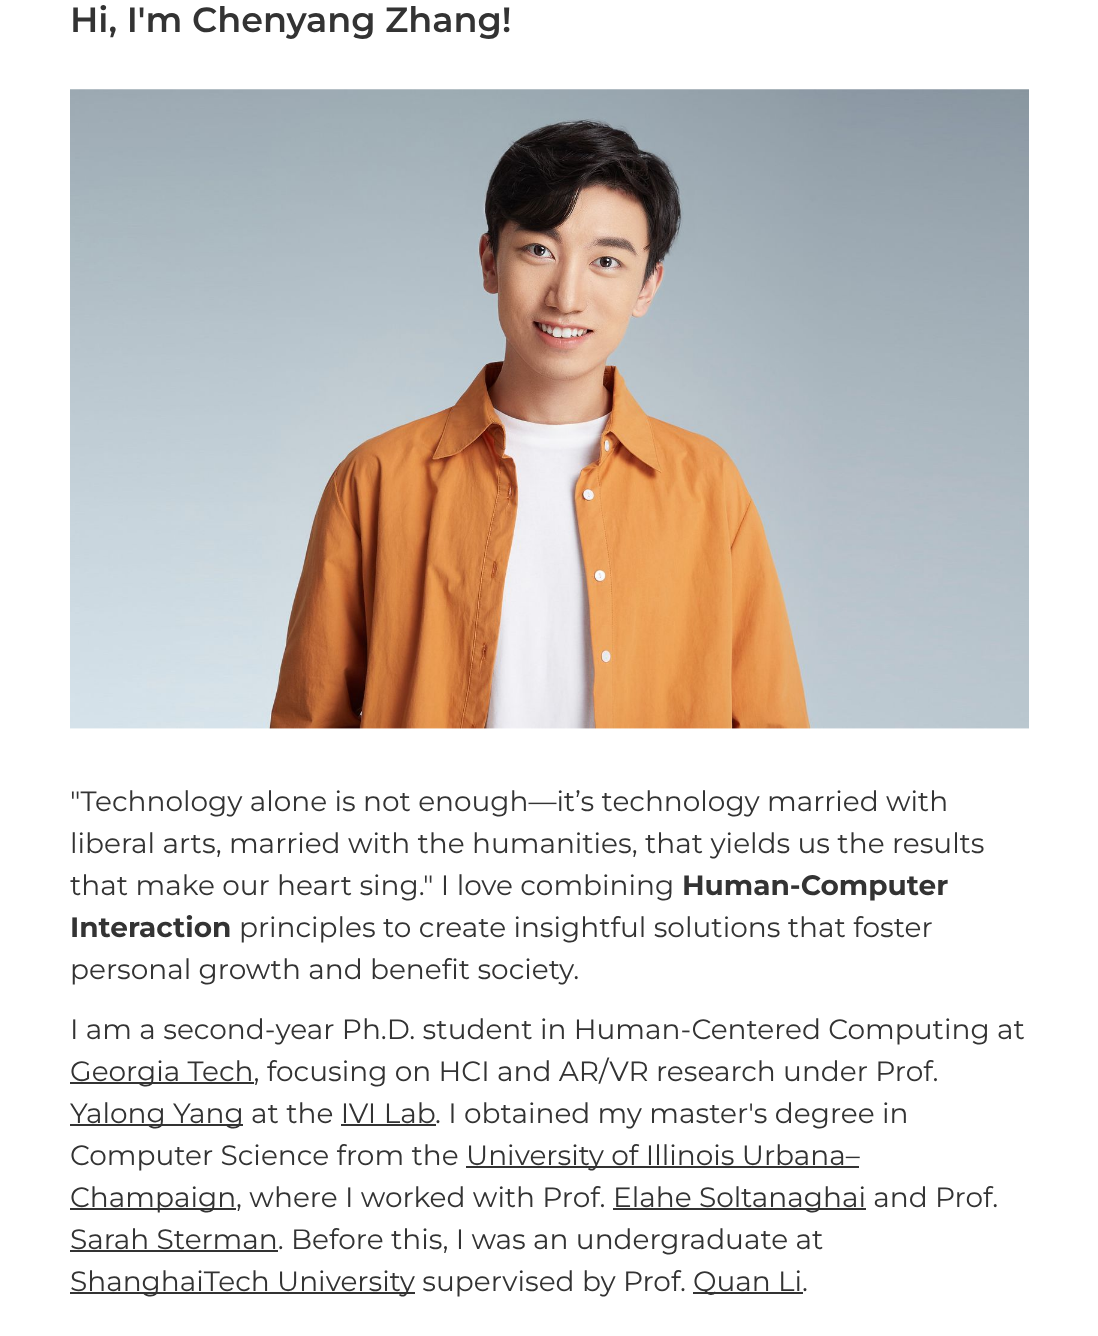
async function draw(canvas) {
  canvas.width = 1098
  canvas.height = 1336
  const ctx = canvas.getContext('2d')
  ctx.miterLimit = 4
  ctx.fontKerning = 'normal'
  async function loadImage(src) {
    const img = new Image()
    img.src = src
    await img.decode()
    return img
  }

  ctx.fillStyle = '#fff'
  ctx.fillRect(0, 0, 1098, 1336)
  ctx.font = '600 35px Montserrat'
  ctx.fillStyle = '#333'
  ctx.fillText('Hi, I\'m Chenyang Zhang!', 70, 32)
  ctx.drawImage(await loadImage('image0.png'), 70, 89, 959, 640)
  ctx.drawImage(await loadImage('image1.png'), 70, 89, 959, 640)
  ctx.font = '28px Montserrat'
  ctx.fillText('"Technology alone is not enough—it’s technology married with', 70, 811)
  ctx.fillText('liberal arts, married with the humanities, that yields us the results', 70, 853)
  ctx.fillText('that make our heart sing." I love combining', 70, 895)
  ctx.font = 'bold 28px Montserrat'
  ctx.fillText('Human-Computer', 682, 895)
  ctx.fillText('Interaction', 70, 937)
  ctx.font = '28px Montserrat'
  ctx.fillText('principles to create insightful solutions that foster', 239, 937)
  ctx.fillText('personal growth and benefit society.', 70, 979)
  ctx.fillText('I am a second-year Ph.D. student in Human-Centered Computing at', 70, 1039)
  ctx.fillRect(70, 1082, 184, 2)
  ctx.fillText('Georgia Tech, focusing on HCI and AR/VR research under Prof.', 70, 1081)
  ctx.fillRect(70, 1124, 173, 2)
  ctx.fillText('Yalong Yang at the IVI Lab', 70, 1123)
  ctx.fillText('. I obtained my master\'s degree in', 435, 1123)
  ctx.fillRect(341, 1124, 95, 2)
  ctx.fillText('Computer Science from the', 70, 1165)
  ctx.fillRect(466, 1166, 393, 2)
  ctx.fillText('University of Illinois Urbana–', 466, 1165)
  ctx.fillRect(70, 1208, 166, 2)
  ctx.fillText('Champaign, where I worked with Prof.', 70, 1207)
  ctx.fillRect(613, 1208, 253, 2)
  ctx.fillText('Elahe Soltanaghai and Prof.', 613, 1207)
  ctx.fillRect(70, 1250, 208, 2)
  ctx.fillText('Sarah Sterman. Before this, I was an undergraduate at', 70, 1249)
  ctx.fillRect(70, 1292, 345, 2)
  ctx.fillText('ShanghaiTech University supervised by Prof.', 70, 1291)
  ctx.fillRect(693, 1292, 110, 2)
  ctx.fillText('Quan Li.', 693, 1291)
}

draw(document.querySelector('canvas'))
